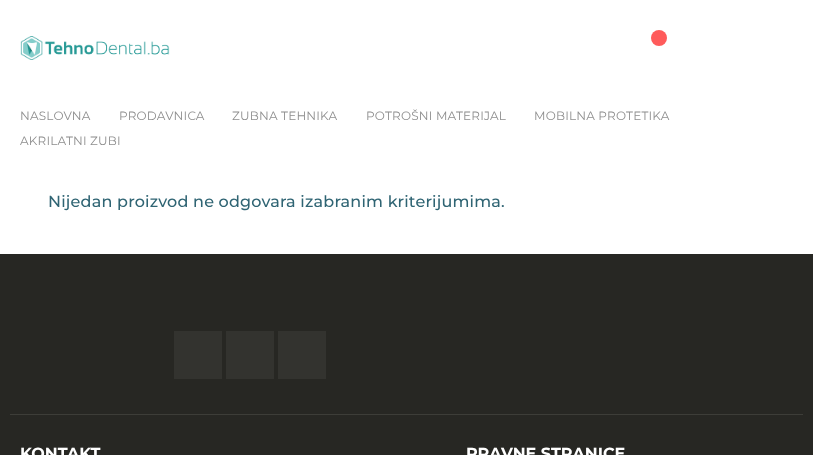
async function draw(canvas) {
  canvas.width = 813
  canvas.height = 455
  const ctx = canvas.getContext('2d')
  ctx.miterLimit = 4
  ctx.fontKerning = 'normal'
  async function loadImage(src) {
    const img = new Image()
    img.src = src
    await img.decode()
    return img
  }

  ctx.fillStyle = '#fff'
  ctx.fillRect(0, 0, 813, 455)
  ctx.drawImage(await loadImage('image0.png'), 20, 36, 150, 24)
  ctx.fillStyle = '#ff5b5b'
  ctx.beginPath()
  ctx.arc(659, 38, 8, 0, 2 * Math.PI)
  ctx.fill()
  ctx.letterSpacing = '0.2px'
  ctx.font = '12px Montserrat'
  ctx.fillStyle = '#8e8e8e'
  ctx.fillText('NASLOVNA', 20, 120)
  ctx.fillText('PRODAVNICA', 119, 120)
  ctx.fillText('ZUBNA TEHNIKA', 232, 120)
  ctx.fillText('POTROŠNI MATERIJAL', 366, 120)
  ctx.fillText('MOBILNA PROTETIKA', 534, 120)
  ctx.fillText('AKRILATNI ZUBI', 20, 145)
  ctx.font = '500 16px Montserrat'
  ctx.fillStyle = '#2f6473'
  ctx.fillText('Nijedan proizvod ne odgovara izabranim kriterijumima.', 48, 207)
  ctx.fillStyle = '#272723'
  ctx.fillRect(0, 254, 813, 201)
  ctx.fillStyle = '#3d3d38'
  ctx.fillRect(10, 414, 793, 1)
  ctx.fillStyle = '#33332f'
  ctx.fillRect(174, 331, 48, 48)
  ctx.fillRect(226, 331, 48, 48)
  ctx.fillRect(278, 331, 48, 48)
  ctx.letterSpacing = '0px'
  ctx.font = 'bold 16px Montserrat'
  ctx.fillStyle = '#fff'
  ctx.fillText('KONTAKT', 20, 459)
  ctx.fillText('PRAVNE STRANICE', 466, 459)
}

draw(document.querySelector('canvas'))
